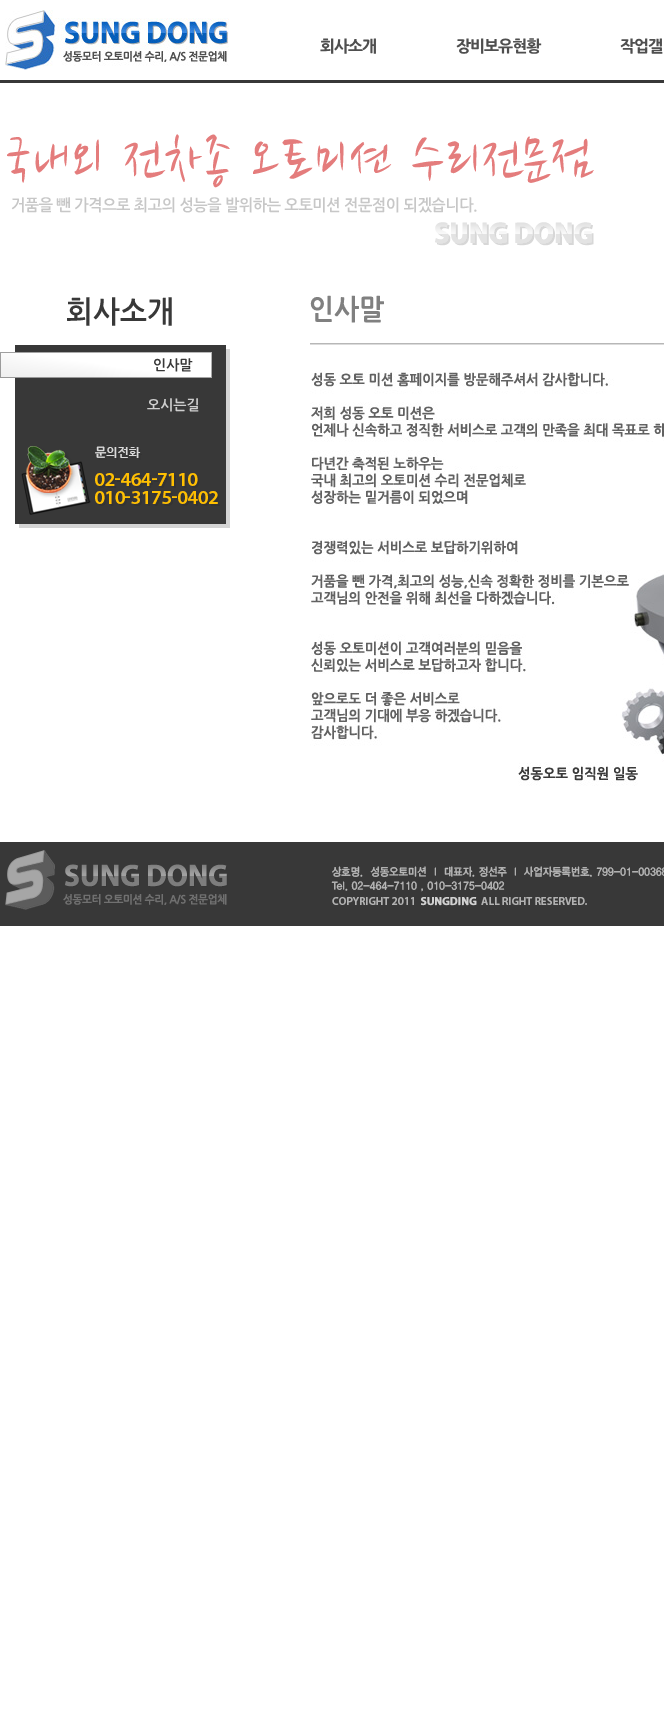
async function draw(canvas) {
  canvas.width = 664
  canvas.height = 1716
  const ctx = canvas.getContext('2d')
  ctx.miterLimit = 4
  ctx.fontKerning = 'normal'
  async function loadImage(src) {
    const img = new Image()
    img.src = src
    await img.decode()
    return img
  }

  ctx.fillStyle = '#fff'
  ctx.fillRect(0, 0, 664, 1716)
  ctx.fillStyle = '#383838'
  ctx.fillRect(0, 80, 664, 3)
  ctx.drawImage(await loadImage('image0.png'), 5, 10, 224, 60)
  ctx.letterSpacing = '-1px'
  ctx.font = '800 16px NanumGothic'
  ctx.fillStyle = '#4f4f4f'
  ctx.fillText('회사소개', 320, 52)
  ctx.fillText('장비보유현황', 456, 52)
  ctx.fillText('작업갤', 620, 52)
  ctx.drawImage(await loadImage('image1.png'), 7, 134, 587, 112)
  ctx.drawImage(await loadImage('image2.png'), 67, 297, 105, 29)
  ctx.drawImage(await loadImage('image3.png'), 15, 345, 215, 183)
  ctx.drawImage(await loadImage('image4.png'), 0, 352, 212, 26)
  ctx.letterSpacing = '0px'
  ctx.font = 'bold 14px NanumGothic'
  ctx.fillStyle = '#383838'
  ctx.fillText('인사말', 153, 370)
  ctx.fillStyle = '#cecece'
  ctx.fillText('오시는길', 147, 410)
  ctx.drawImage(await loadImage('image5.png'), 310, 295, 74, 28)
  ctx.drawImage(await loadImage('image6.png'), 310, 343, 354, 2)
  ctx.drawImage(await loadImage('image7.png'), 310, 370, 354, 416)
  ctx.fillStyle = '#383838'
  ctx.fillRect(0, 842, 664, 84)
  ctx.drawImage(await loadImage('image8.png'), 5, 850, 659, 60)
}

draw(document.querySelector('canvas'))
